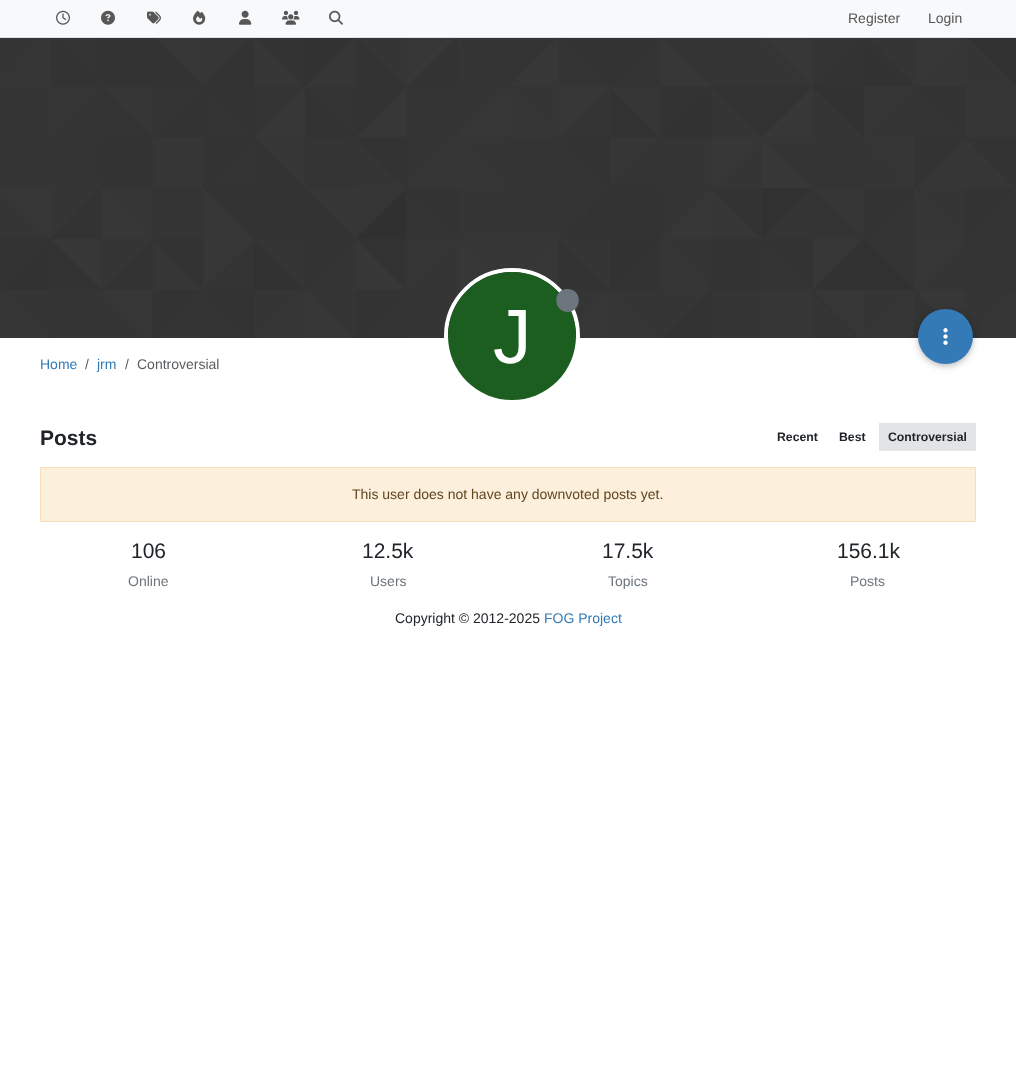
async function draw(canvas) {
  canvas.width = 1016
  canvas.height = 1080
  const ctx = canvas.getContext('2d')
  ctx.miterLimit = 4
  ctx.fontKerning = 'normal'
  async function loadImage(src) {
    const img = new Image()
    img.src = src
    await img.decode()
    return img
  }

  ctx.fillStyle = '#fff'
  ctx.fillRect(0, 0, 1016, 1080)
  ctx.fillStyle = '#f8f9fa'
  ctx.fillRect(0, 0, 1016, 37)
  ctx.fillStyle = '#dee2e6'
  ctx.fillRect(0, 37, 1016, 1)
  ctx.drawImage(await loadImage('image0.png'), 56, 10, 14, 15)
  ctx.drawImage(await loadImage('image1.png'), 101, 10, 14, 15)
  ctx.drawImage(await loadImage('image2.png'), 147, 11, 14, 13)
  ctx.drawImage(await loadImage('image3.png'), 193, 10, 13, 15)
  ctx.drawImage(await loadImage('image4.png'), 239, 10, 13, 15)
  ctx.drawImage(await loadImage('image5.png'), 282, 10, 18, 15)
  ctx.drawImage(await loadImage('image6.png'), 329, 10, 14, 15)
  ctx.font = '14px Liberation Sans'
  ctx.fillStyle = '#575758'
  ctx.fillText('Register', 848, 23)
  ctx.fillText('Login', 928, 23)
  ctx.fillStyle = '#337ab7'
  ctx.fillText('Home', 40, 369)
  ctx.fillStyle = '#595c5f'
  ctx.fillText('/', 85, 369)
  ctx.fillStyle = '#337ab7'
  ctx.fillText('jrm', 97, 369)
  ctx.fillStyle = '#595c5f'
  ctx.fillText('/', 125, 369)
  ctx.fillText('Controversial', 137, 369)
  ctx.drawImage(await loadImage('image7.png'), 0, 38, 1016, 300)
  ctx.beginPath()
  ctx.arc(512, 336, 66, 0, 2 * Math.PI)
  ctx.strokeStyle = '#fff'
  ctx.lineWidth = 4
  ctx.stroke()
  ctx.fillStyle = '#1b5e20'
  ctx.beginPath()
  ctx.arc(512, 336, 64, 0, 2 * Math.PI)
  ctx.fill()
  ctx.fillStyle = '#6c757d'
  ctx.beginPath()
  ctx.moveTo(567.5, 312)
  ctx.bezierCurveTo(582.5, 311.5, 582.5, 289, 567.5, 289)
  ctx.bezierCurveTo(552.5, 289, 552.5, 311.5, 567.5, 312)
  ctx.closePath()
  ctx.fill()
  ctx.font = '77px Liberation Sans'
  ctx.fillStyle = '#fff'
  ctx.fillText('J', 493, 363)
  ctx.fillStyle = '#0000001f'
  ctx.filter = 'blur(5px)'
  ctx.beginPath()
  ctx.roundRect(918, 311, 55, 55, 27.5)
  ctx.fill()
  ctx.filter = 'none'
  ctx.fillStyle = '#00000029'
  ctx.filter = 'blur(2.5px)'
  ctx.beginPath()
  ctx.roundRect(918, 311, 55, 55, 27.5)
  ctx.fill()
  ctx.filter = 'none'
  ctx.fillStyle = '#337ab7'
  ctx.beginPath()
  ctx.arc(945.5, 336.5, 27.5, 0, 2 * Math.PI)
  ctx.fill()
  ctx.drawImage(await loadImage('image8.png'), 943, 328, 5, 17)
  ctx.font = 'bold 21px Liberation Sans'
  ctx.fillStyle = '#212529'
  ctx.fillText('Posts', 40, 445)
  ctx.font = 'bold 12.25px Liberation Sans'
  ctx.fillText('Recent', 777, 441)
  ctx.fillText('Best', 839, 441)
  ctx.fillStyle = '#e3e4e5'
  ctx.fillRect(879, 423, 97, 28)
  ctx.fillStyle = '#212529'
  ctx.fillText('Controversial', 888, 441)
  ctx.fillStyle = '#fcefdc'
  ctx.beginPath()
  ctx.rect(40.5, 467.5, 935, 54)
  ctx.fill()
  ctx.strokeStyle = '#f9deb8'
  ctx.lineWidth = 1
  ctx.stroke()
  ctx.font = '14px Liberation Sans'
  ctx.fillStyle = '#60451f'
  ctx.fillText('This user does not have any downvoted posts yet.', 352, 499)
  ctx.font = '21px Liberation Sans'
  ctx.fillStyle = '#212529'
  ctx.fillText('106', 131, 558)
  ctx.font = '14px Liberation Sans'
  ctx.fillStyle = '#6c757d'
  ctx.fillText('Online', 128, 586)
  ctx.font = '21px Liberation Sans'
  ctx.fillStyle = '#212529'
  ctx.fillText('12.5k', 362, 558)
  ctx.font = '14px Liberation Sans'
  ctx.fillStyle = '#6c757d'
  ctx.fillText('Users', 370, 586)
  ctx.font = '21px Liberation Sans'
  ctx.fillStyle = '#212529'
  ctx.fillText('17.5k', 602, 558)
  ctx.font = '14px Liberation Sans'
  ctx.fillStyle = '#6c757d'
  ctx.fillText('Topics', 608, 586)
  ctx.font = '21px Liberation Sans'
  ctx.fillStyle = '#212529'
  ctx.fillText('156.1k', 837, 558)
  ctx.font = '14px Liberation Sans'
  ctx.fillStyle = '#6c757d'
  ctx.fillText('Posts', 850, 586)
  ctx.fillStyle = '#212529'
  ctx.fillText('Copyright © 2012-2025', 395, 623)
  ctx.fillStyle = '#337ab7'
  ctx.fillText('FOG Project', 544, 623)
}

draw(document.querySelector('canvas'))
